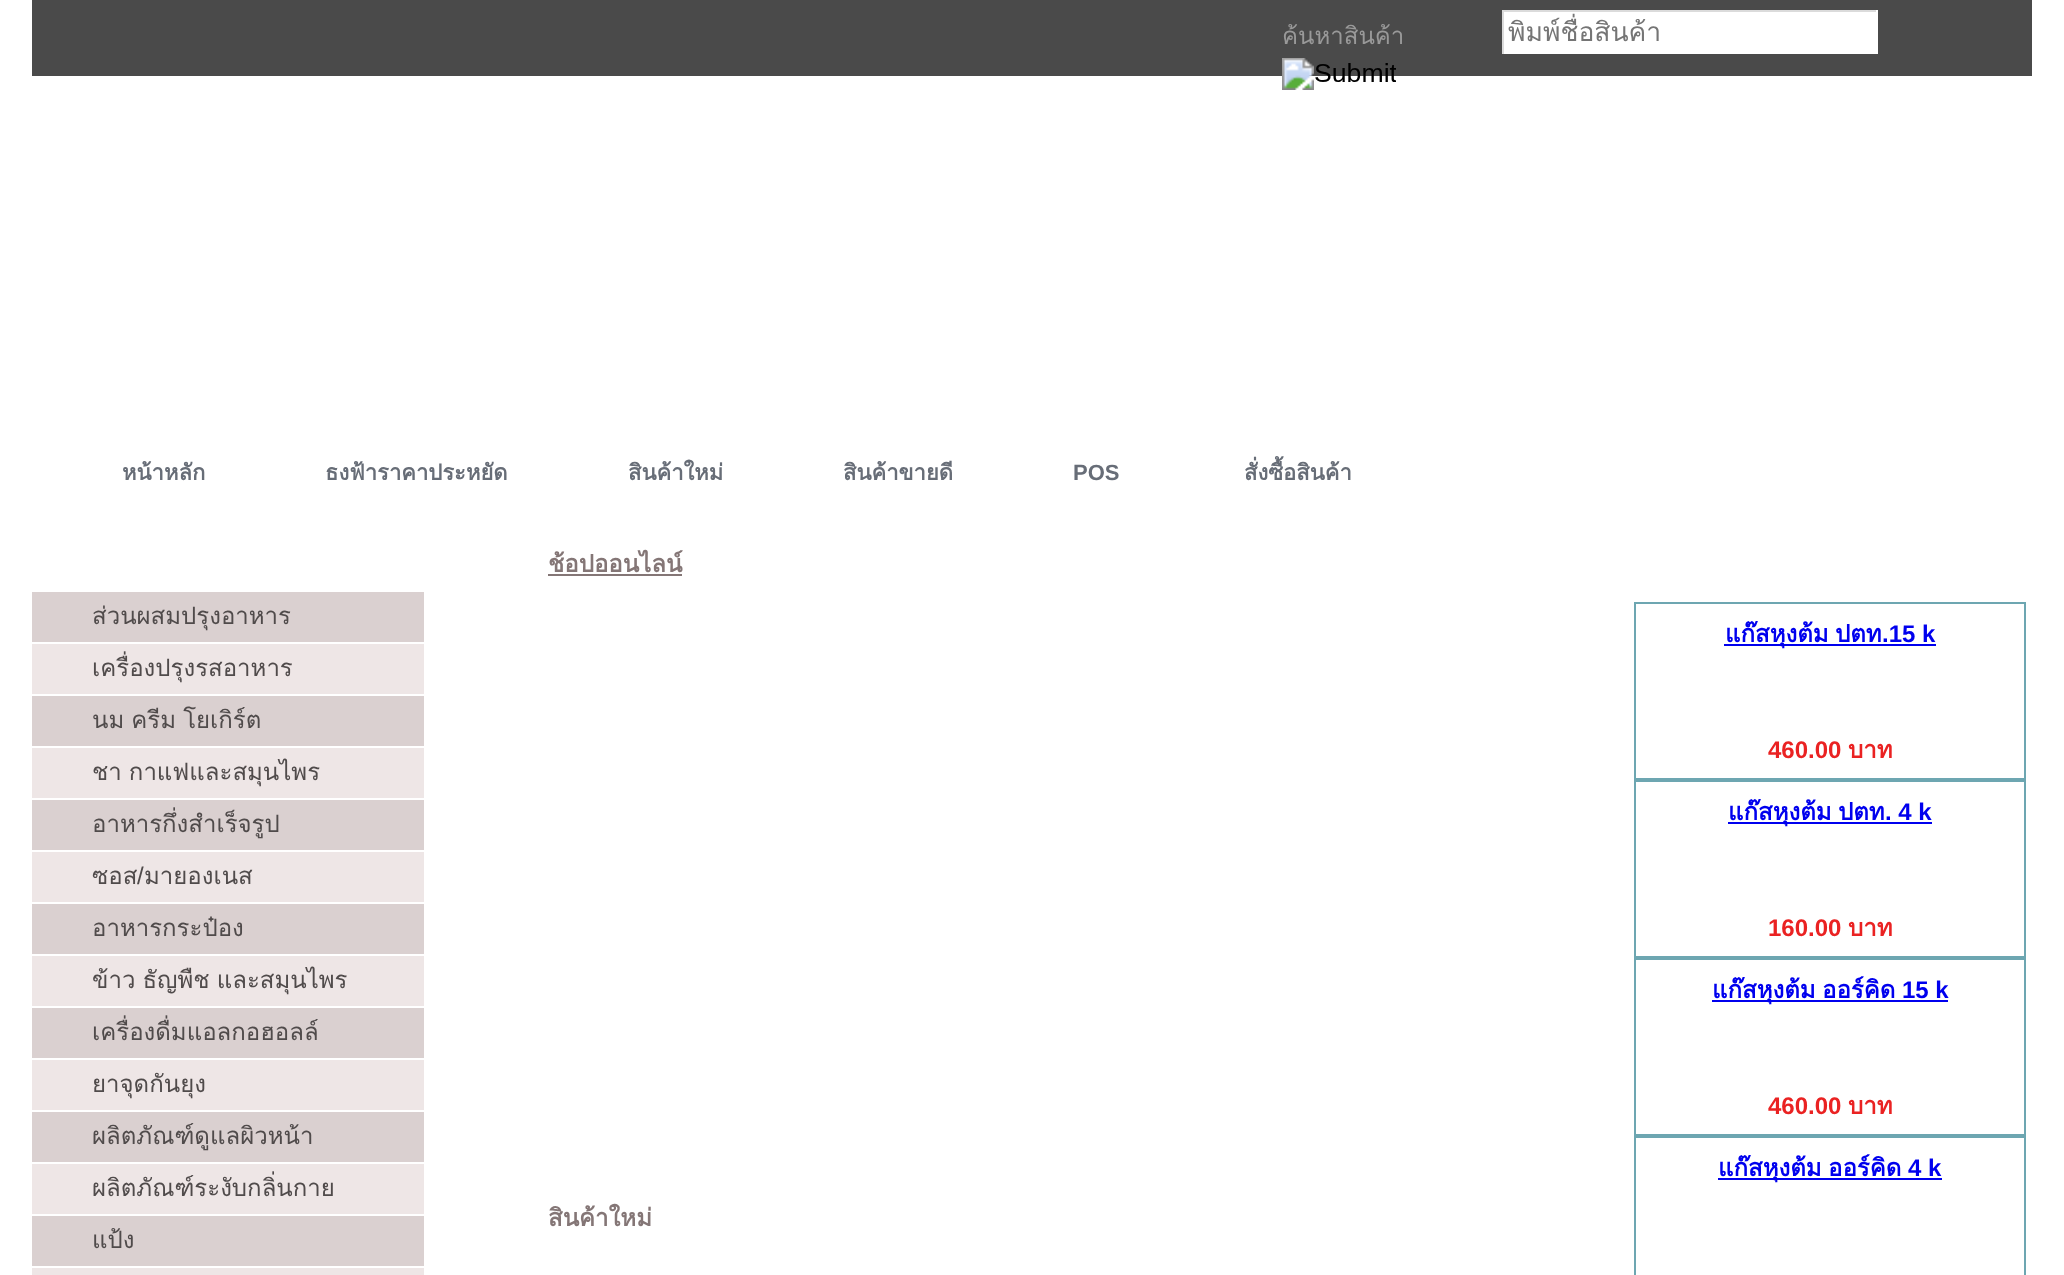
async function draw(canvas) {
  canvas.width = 2064
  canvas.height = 1275
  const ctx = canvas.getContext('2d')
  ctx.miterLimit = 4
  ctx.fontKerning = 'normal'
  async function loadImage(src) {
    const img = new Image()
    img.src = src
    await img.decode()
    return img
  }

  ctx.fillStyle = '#fff'
  ctx.fillRect(0, 0, 2064, 1275)
  ctx.fillStyle = '#4a4a4a'
  ctx.fillRect(32, 0, 2000, 76)
  ctx.font = '24px Loma'
  ctx.fillStyle = '#999'
  ctx.fillText('ค้นหาสินค้า', 1282, 44)
  ctx.fillStyle = '#fff'
  ctx.fillRect(1504, 12, 372, 42)
  ctx.fillStyle = '#dbdbdb'
  ctx.fillRect(1502, 10, 376, 2)
  ctx.fillStyle = '#fff'
  ctx.fillRect(1876, 10, 2, 44)
  ctx.fillStyle = '#dbdbdb'
  ctx.fillRect(1502, 10, 2, 44)
  ctx.save()
  ctx.beginPath()
  ctx.rect(1508, 12, 364, 40)
  ctx.clip()
  ctx.font = '26.5px Loma'
  ctx.fillStyle = '#757575'
  ctx.fillText('พิมพ์ชื่อสินค้า', 1508, 41)
  ctx.restore()
  ctx.drawImage(await loadImage('image0.png'), 1282, 58, 114, 32)
  ctx.font = 'bold 22px Loma'
  ctx.fillStyle = '#676d77'
  ctx.fillText('หน้าหลัก', 122, 480)
  ctx.fillText('ธงฟ้าราคาประหยัด', 325, 480)
  ctx.fillText('สินค้าใหม่', 628, 480)
  ctx.fillText('สินค้าขายดี', 843, 480)
  ctx.font = 'bold 22px Liberation Sans'
  ctx.fillText('POS', 1073, 480)
  ctx.font = 'bold 22px Loma'
  ctx.fillText('สั่งซื้อสินค้า', 1244, 480)
  ctx.fillStyle = '#dad0d0'
  ctx.fillRect(32, 592, 392, 50)
  ctx.font = '24px Loma'
  ctx.fillStyle = '#504b4b'
  ctx.fillText('ส่วนผสมปรุงอาหาร', 92, 624)
  ctx.fillStyle = '#eee6e6'
  ctx.fillRect(32, 644, 392, 50)
  ctx.fillStyle = '#504b4b'
  ctx.fillText('เครื่องปรุงรสอาหาร', 92, 676)
  ctx.fillStyle = '#dad0d0'
  ctx.fillRect(32, 696, 392, 50)
  ctx.wordSpacing = '-1px'
  ctx.fillStyle = '#504b4b'
  ctx.fillText('นม ครีม โยเกิร์ต', 92, 728)
  ctx.fillStyle = '#eee6e6'
  ctx.fillRect(32, 748, 392, 50)
  ctx.fillStyle = '#504b4b'
  ctx.fillText('ชา กาแฟและสมุนไพร', 92, 780)
  ctx.fillStyle = '#dad0d0'
  ctx.fillRect(32, 800, 392, 50)
  ctx.wordSpacing = '0px'
  ctx.fillStyle = '#504b4b'
  ctx.fillText('อาหารกึ่งสำเร็จรูป', 92, 832)
  ctx.fillStyle = '#eee6e6'
  ctx.fillRect(32, 852, 392, 50)
  ctx.fillStyle = '#504b4b'
  ctx.fillText('ซอส', 92, 884)
  ctx.font = '24px Liberation Sans'
  ctx.fillText('/', 137, 884)
  ctx.font = '24px Loma'
  ctx.fillText('มายองเนส', 144, 884)
  ctx.fillStyle = '#dad0d0'
  ctx.fillRect(32, 904, 392, 50)
  ctx.fillStyle = '#504b4b'
  ctx.fillText('อาหารกระป๋อง', 92, 936)
  ctx.fillStyle = '#eee6e6'
  ctx.fillRect(32, 956, 392, 50)
  ctx.wordSpacing = '-1px'
  ctx.fillStyle = '#504b4b'
  ctx.fillText('ข้าว ธัญพืช และสมุนไพร', 92, 988)
  ctx.fillStyle = '#dad0d0'
  ctx.fillRect(32, 1008, 392, 50)
  ctx.wordSpacing = '0px'
  ctx.fillStyle = '#504b4b'
  ctx.fillText('เครื่องดื่มแอลกอฮอลล์', 92, 1040)
  ctx.fillStyle = '#eee6e6'
  ctx.fillRect(32, 1060, 392, 50)
  ctx.fillStyle = '#504b4b'
  ctx.fillText('ยาจุดกันยุง', 92, 1092)
  ctx.fillStyle = '#dad0d0'
  ctx.fillRect(32, 1112, 392, 50)
  ctx.fillStyle = '#504b4b'
  ctx.fillText('ผลิตภัณฑ์ดูแลผิวหน้า', 92, 1144)
  ctx.fillStyle = '#eee6e6'
  ctx.fillRect(32, 1164, 392, 50)
  ctx.fillStyle = '#504b4b'
  ctx.fillText('ผลิตภัณฑ์ระงับกลิ่นกาย', 92, 1196)
  ctx.fillStyle = '#dad0d0'
  ctx.fillRect(32, 1216, 392, 50)
  ctx.fillStyle = '#504b4b'
  ctx.fillText('แป้ง', 92, 1248)
  ctx.fillStyle = '#eee6e6'
  ctx.fillRect(32, 1268, 392, 7)
  ctx.font = 'bold 24px Loma'
  ctx.fillStyle = '#847676'
  ctx.fillText('ช้อปออนไลน์', 548, 572)
  ctx.fillRect(548, 574, 134, 2)
  ctx.fillText('สินค้าใหม่', 548, 1226)
  ctx.strokeStyle = '#6da6b1'
  ctx.lineWidth = 2
  ctx.strokeRect(1635, 603, 390, 176)
  ctx.fillStyle = '#00e'
  ctx.fillRect(1724, 644, 212, 2)
  ctx.fillText('แก๊สหุงต้ม', 1725, 642)
  ctx.fillText('ปตท', 1835, 642)
  ctx.font = 'bold 24px Liberation Sans'
  ctx.fillText('.15 k', 1882, 642)
  ctx.fillStyle = '#ea2222'
  ctx.fillText('460.00', 1768, 758)
  ctx.font = 'bold 24px Loma'
  ctx.fillText('บาท', 1848, 758)
  ctx.strokeRect(1635, 781, 390, 176)
  ctx.fillStyle = '#00e'
  ctx.fillRect(1728, 822, 204, 2)
  ctx.fillText('แก๊สหุงต้ม', 1728, 820)
  ctx.fillText('ปตท', 1838, 820)
  ctx.font = 'bold 24px Liberation Sans'
  ctx.fillText('. 4 k', 1885, 820)
  ctx.fillStyle = '#ea2222'
  ctx.fillText('160.00', 1768, 936)
  ctx.font = 'bold 24px Loma'
  ctx.fillText('บาท', 1848, 936)
  ctx.strokeRect(1635, 959, 390, 176)
  ctx.fillStyle = '#00e'
  ctx.fillRect(1712, 1000, 236, 2)
  ctx.fillText('แก๊สหุงต้ม', 1712, 998)
  ctx.fillText('ออร์คิด', 1822, 998)
  ctx.font = 'bold 24px Liberation Sans'
  ctx.fillText('15 k', 1902, 998)
  ctx.fillStyle = '#ea2222'
  ctx.fillText('460.00', 1768, 1114)
  ctx.font = 'bold 24px Loma'
  ctx.fillText('บาท', 1848, 1114)
  ctx.strokeRect(1635, 1137, 390, 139)
  ctx.fillStyle = '#00e'
  ctx.fillRect(1718, 1178, 224, 2)
  ctx.fillText('แก๊สหุงต้ม', 1718, 1176)
  ctx.fillText('ออร์คิด', 1828, 1176)
  ctx.font = 'bold 24px Liberation Sans'
  ctx.fillText('4 k', 1908, 1176)
}

draw(document.querySelector('canvas'))
